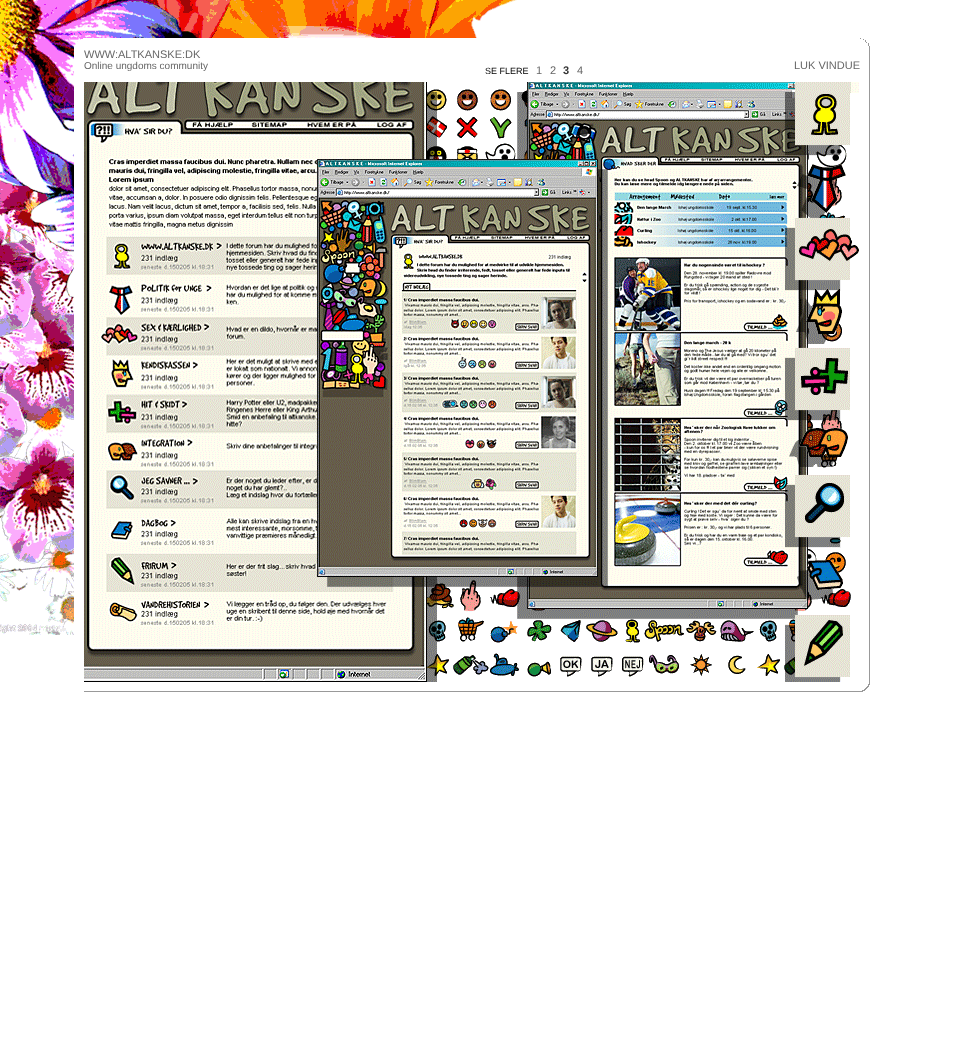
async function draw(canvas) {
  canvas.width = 957
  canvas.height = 1044
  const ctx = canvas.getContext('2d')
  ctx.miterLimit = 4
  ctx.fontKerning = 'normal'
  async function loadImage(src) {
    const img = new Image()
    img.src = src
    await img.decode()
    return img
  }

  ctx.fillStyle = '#fff'
  ctx.fillRect(0, 0, 957, 1044)
  ctx.drawImage(await loadImage('image0.png'), 0, 0, 520, 635)
  ctx.drawImage(await loadImage('image1.png'), 74, 38, 10, 10)
  ctx.fillRect(84, 38, 436, 10)
  ctx.drawImage(await loadImage('image2.png'), 860, 38, 10, 10)
  ctx.fillRect(74, 48, 10, 587)
  ctx.fillRect(84, 48, 382, 34)
  ctx.font = '11px Liberation Sans'
  ctx.fillStyle = '#666'
  ctx.fillText('WWW:ALTKANSKE:DK', 84, 58)
  ctx.font = '10px Liberation Sans'
  ctx.fillText('Online ungdoms community', 84, 69)
  ctx.fillStyle = '#fff'
  ctx.fillRect(475, 48, 8, 3)
  ctx.font = '9px Liberation Sans'
  ctx.fillStyle = '#000'
  ctx.fillText('SE FLERE', 485, 74)
  ctx.font = '11px Liberation Sans'
  ctx.fillStyle = '#666'
  ctx.fillText('1', 536, 74)
  ctx.fillText('2', 550, 74)
  ctx.font = 'bold 11px Liberation Sans'
  ctx.fillStyle = '#333'
  ctx.fillText('3', 563, 74)
  ctx.font = '11px Liberation Sans'
  ctx.fillStyle = '#666'
  ctx.fillText('4', 577, 74)
  ctx.fillText('LUK VINDUE', 794, 69)
  ctx.fillStyle = '#999'
  ctx.fillRect(869, 48, 1, 634)
  ctx.drawImage(await loadImage('image3.png'), 84, 82, 775, 600)
  ctx.fillRect(84, 691, 776, 1)
  ctx.drawImage(await loadImage('image4.png'), 860, 682, 10, 10)
}

draw(document.querySelector('canvas'))
